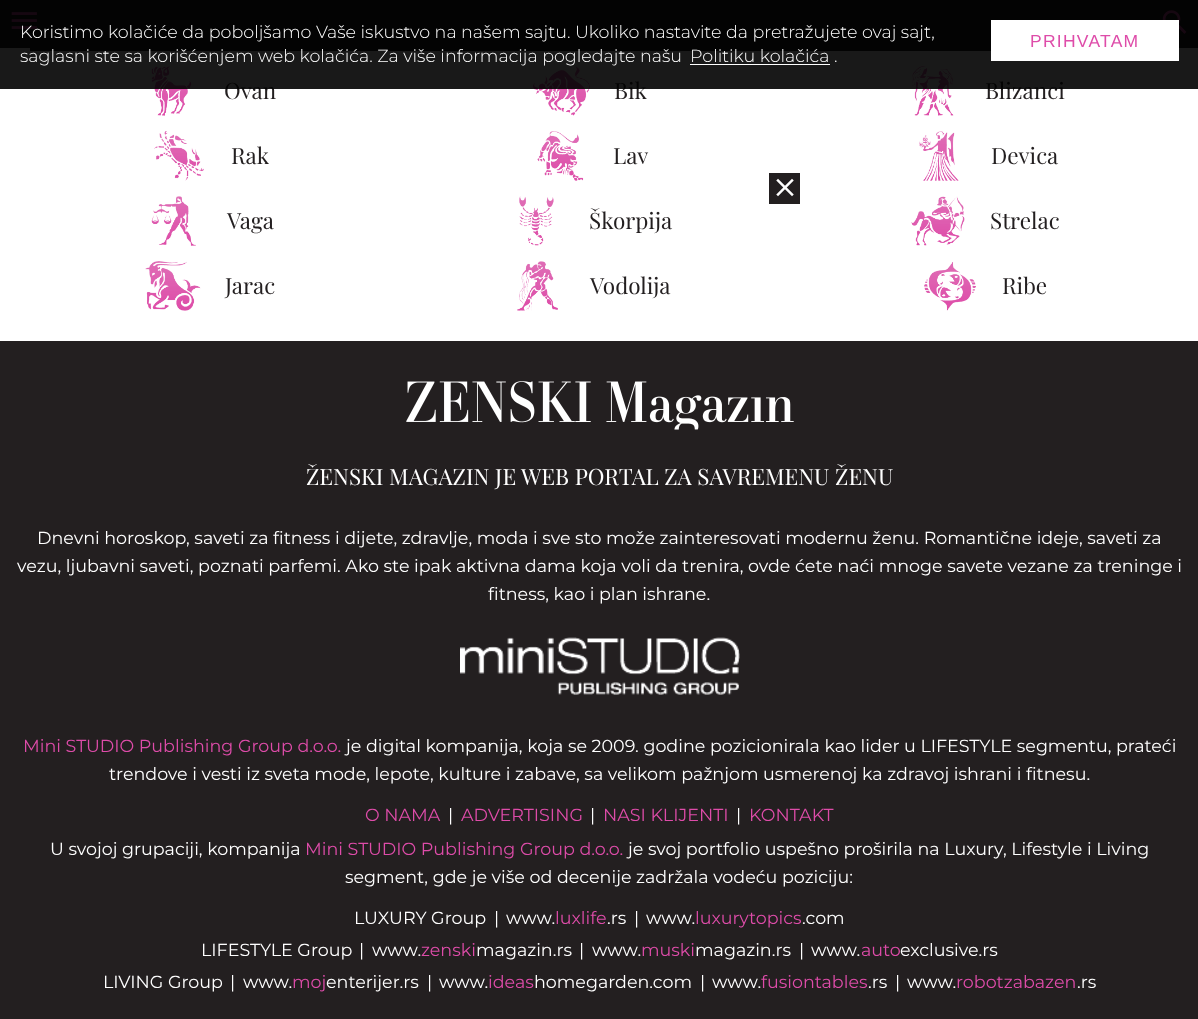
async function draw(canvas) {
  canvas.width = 1198
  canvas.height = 1019
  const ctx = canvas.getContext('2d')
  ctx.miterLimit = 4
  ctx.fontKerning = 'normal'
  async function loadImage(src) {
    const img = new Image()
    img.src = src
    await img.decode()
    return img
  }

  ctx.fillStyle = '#fff'
  ctx.fillRect(0, 0, 1198, 1019)
  ctx.fillStyle = '#231f20'
  ctx.fillRect(0, 0, 1198, 48)
  ctx.drawImage(await loadImage('image0.png'), 11, 12, 26, 17)
  ctx.drawImage(await loadImage('image1.png'), 1162, 10, 25, 24)
  ctx.fillRect(30, 48, 961, 3)
  ctx.drawImage(await loadImage('image2.png'), 151, 66, 41, 50)
  ctx.font = '22.5px Playfair Display'
  ctx.fillText('Ovan', 224, 99)
  ctx.drawImage(await loadImage('image3.png'), 533, 66, 57, 50)
  ctx.fillText('Bik', 614, 99)
  ctx.drawImage(await loadImage('image4.png'), 912, 66, 42, 50)
  ctx.fillText('Blizanci', 985, 99)
  ctx.fillStyle = '#000000e6'
  ctx.fillRect(0, 0, 1198, 89)
  ctx.font = '300 17.5px Montserrat'
  ctx.fillStyle = '#fff'
  ctx.fillText('Koristimo kolačiće da poboljšamo Vaše iskustvo na našem sajtu. Ukoliko nastavite da pretražujete ovaj sajt,', 20, 38)
  ctx.fillText('saglasni ste sa korišćenjem web kolačića. Za više informacija pogledajte našu', 20, 62)
  ctx.fillText('Politiku kolačića', 690, 62)
  ctx.fillRect(690, 64, 140, 1)
  ctx.fillText('.', 834, 62)
  ctx.fillRect(991, 20, 188, 41)
  ctx.letterSpacing = '1.25px'
  ctx.font = '17.5px Liberation Sans'
  ctx.fillStyle = '#de4ca9'
  ctx.fillText('PRIHVATAM', 1030, 47)
  ctx.drawImage(await loadImage('image5.png'), 154, 131, 50, 50)
  ctx.letterSpacing = '0px'
  ctx.font = '22.5px Playfair Display'
  ctx.fillStyle = '#231f20'
  ctx.fillText('Rak', 231, 164)
  ctx.drawImage(await loadImage('image6.png'), 537, 131, 47, 50)
  ctx.fillText('Lav', 613, 164)
  ctx.drawImage(await loadImage('image7.png'), 919, 131, 40, 50)
  ctx.fillText('Devica', 991, 164)
  ctx.drawImage(await loadImage('image8.png'), 151, 196, 45, 50)
  ctx.fillText('Vaga', 227, 229)
  ctx.drawImage(await loadImage('image9.png'), 519, 196, 35, 50)
  ctx.fillText('Škorpija', 589, 229)
  ctx.drawImage(await loadImage('image10.png'), 911, 196, 54, 50)
  ctx.fillText('Strelac', 990, 229)
  ctx.drawImage(await loadImage('image11.png'), 145, 261, 56, 50)
  ctx.fillText('Jarac', 225, 294)
  ctx.drawImage(await loadImage('image12.png'), 517, 261, 41, 50)
  ctx.fillText('Vodolija', 590, 294)
  ctx.drawImage(await loadImage('image13.png'), 924, 262, 52, 49)
  ctx.fillText('Ribe', 1002, 294)
  ctx.fillRect(769, 173, 31, 31)
  ctx.drawImage(await loadImage('image14.png'), 776, 178, 18, 19)
  ctx.fillRect(0, 341, 1198, 678)
  ctx.drawImage(await loadImage('image15.png'), 406, 381, 388, 49)
  ctx.fillStyle = '#fff'
  ctx.fillText('ŽENSKI MAGAZIN JE WEB PORTAL ZA SAVREMENU ŽENU', 306, 485)
  ctx.font = '17.5px Montserrat'
  ctx.fillText('Dnevni horoskop, saveti za fitness i dijete, zdravlje, moda i sve sto može zainteresovati modernu ženu. Romantične ideje, saveti za', 37, 544)
  ctx.fillText('vezu, ljubavni saveti, poznati parfemi. Ako ste ipak aktivna dama koja voli da trenira, ovde ćete naći mnoge savete vezane za treninge i', 17, 572)
  ctx.fillText('fitness, kao i plan ishrane.', 488, 600)
  ctx.drawImage(await loadImage('image16.png'), 460, 637, 280, 58)
  ctx.fillStyle = '#de4ca9'
  ctx.fillText('Mini STUDIO Publishing Group d.o.o.', 23, 752)
  ctx.fillStyle = '#fff'
  ctx.fillText('je digital kompanija, koja se 2009. godine pozicionirala kao lider u LIFESTYLE segmentu, prateći', 346, 752)
  ctx.fillText('trendove i vesti iz sveta mode, lepote, kulture i zabave, sa velikom pažnjom usmerenoj ka zdravoj ishrani i fitnesu.', 109, 780)
  ctx.fillStyle = '#de4ca9'
  ctx.fillText('O NAMA', 365, 821)
  ctx.fillStyle = '#fff'
  ctx.fillText('|', 448, 821)
  ctx.fillStyle = '#de4ca9'
  ctx.fillText('ADVERTISING', 461, 821)
  ctx.fillStyle = '#fff'
  ctx.fillText('|', 590, 821)
  ctx.fillStyle = '#de4ca9'
  ctx.fillText('NASI KLIJENTI', 603, 821)
  ctx.fillStyle = '#fff'
  ctx.fillText('|', 736, 821)
  ctx.fillStyle = '#de4ca9'
  ctx.fillText('KONTAKT', 749, 821)
  ctx.fillStyle = '#fff'
  ctx.fillText('U svojoj grupaciji, kompanija', 50, 855)
  ctx.fillStyle = '#de4ca9'
  ctx.fillText('Mini STUDIO Publishing Group d.o.o.', 305, 855)
  ctx.fillStyle = '#fff'
  ctx.fillText('je svoj portfolio uspešno proširila na Luxury, Lifestyle i Living', 628, 855)
  ctx.fillText('segment, gde je više od decenije zadržala vodeću poziciju:', 345, 883)
  ctx.fillText('LUXURY Group', 354, 924)
  ctx.fillText('|', 494, 924)
  ctx.fillText('www.', 506, 924)
  ctx.fillStyle = '#de4ca9'
  ctx.fillText('luxlife', 555, 924)
  ctx.fillStyle = '#fff'
  ctx.fillText('.rs', 607, 924)
  ctx.fillText('|', 634, 924)
  ctx.fillText('www.', 646, 924)
  ctx.fillStyle = '#de4ca9'
  ctx.fillText('luxurytopics', 695, 924)
  ctx.fillStyle = '#fff'
  ctx.fillText('.com', 802, 924)
  ctx.fillText('LIFESTYLE Group', 201, 956)
  ctx.fillText('|', 359, 956)
  ctx.fillText('www.', 372, 956)
  ctx.fillStyle = '#de4ca9'
  ctx.fillText('zenski', 421, 956)
  ctx.fillStyle = '#fff'
  ctx.fillText('magazin.rs', 476, 956)
  ctx.fillText('|', 579, 956)
  ctx.fillText('www.', 592, 956)
  ctx.fillStyle = '#de4ca9'
  ctx.fillText('muski', 641, 956)
  ctx.fillStyle = '#fff'
  ctx.fillText('magazin.rs', 695, 956)
  ctx.fillText('|', 799, 956)
  ctx.fillText('www.', 811, 956)
  ctx.fillStyle = '#de4ca9'
  ctx.fillText('auto', 861, 956)
  ctx.fillStyle = '#fff'
  ctx.fillText('exclusive.rs', 900, 956)
  ctx.fillText('LIVING Group', 103, 988)
  ctx.fillText('|', 230, 988)
  ctx.fillText('www.', 243, 988)
  ctx.fillStyle = '#de4ca9'
  ctx.fillText('moj', 292, 988)
  ctx.fillStyle = '#fff'
  ctx.fillText('enterijer.rs', 326, 988)
  ctx.fillText('|', 427, 988)
  ctx.fillText('www.', 439, 988)
  ctx.fillStyle = '#de4ca9'
  ctx.fillText('ideas', 488, 988)
  ctx.fillStyle = '#fff'
  ctx.fillText('homegarden.com', 534, 988)
  ctx.fillText('|', 700, 988)
  ctx.fillText('www.', 712, 988)
  ctx.fillStyle = '#de4ca9'
  ctx.fillText('fusiontables', 761, 988)
  ctx.fillStyle = '#fff'
  ctx.fillText('.rs', 868, 988)
  ctx.fillText('|', 895, 988)
  ctx.fillText('www.', 907, 988)
  ctx.fillStyle = '#de4ca9'
  ctx.fillText('robotzabazen', 956, 988)
  ctx.fillStyle = '#fff'
  ctx.fillText('.rs', 1077, 988)
}

draw(document.querySelector('canvas'))
